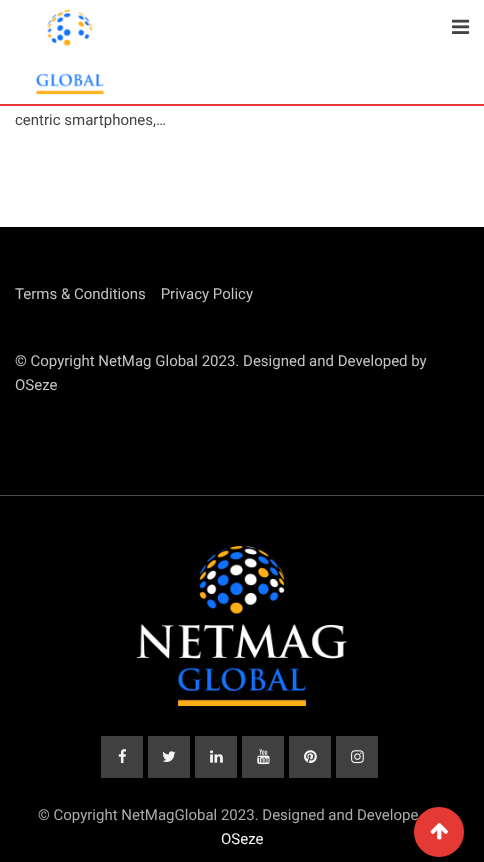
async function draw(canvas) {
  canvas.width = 484
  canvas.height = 862
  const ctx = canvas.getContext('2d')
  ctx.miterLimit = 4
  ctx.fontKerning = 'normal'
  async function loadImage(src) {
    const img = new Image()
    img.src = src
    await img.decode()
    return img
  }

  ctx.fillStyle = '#fff'
  ctx.fillRect(0, 0, 484, 862)
  ctx.fillStyle = '#e53935'
  ctx.fillRect(0, 104, 484, 2)
  ctx.drawImage(await loadImage('image0.png'), 36, 10, 69, 84)
  ctx.drawImage(await loadImage('image1.png'), 452, 19, 18, 15)
  ctx.font = '15px Roboto'
  ctx.fillStyle = '#444'
  ctx.fillText('centric smartphones,…', 15, 125)
  ctx.fillStyle = '#000'
  ctx.fillRect(0, 227, 484, 268)
  ctx.fillStyle = '#c4c4c4'
  ctx.fillText('Terms & Conditions    Privacy Policy', 15, 299)
  ctx.fillText('© Copyright NetMag Global 2023. Designed and Developed by', 15, 366)
  ctx.fillText('OSeze', 15, 390)
  ctx.fillStyle = '#000'
  ctx.fillRect(0, 496, 484, 366)
  ctx.fillStyle = '#4d4d4d'
  ctx.fillRect(0, 495, 484, 1)
  ctx.drawImage(await loadImage('image2.png'), 137, 546, 210, 160)
  ctx.fillStyle = '#404040'
  ctx.fillRect(101, 736, 42, 42)
  ctx.drawImage(await loadImage('image3.png'), 118, 749, 9, 15)
  ctx.fillRect(148, 736, 42, 42)
  ctx.drawImage(await loadImage('image4.png'), 162, 751, 14, 11)
  ctx.fillRect(195, 736, 42, 42)
  ctx.drawImage(await loadImage('image5.png'), 210, 750, 13, 13)
  ctx.fillRect(242, 736, 42, 42)
  ctx.drawImage(await loadImage('image6.png'), 257, 749, 13, 16)
  ctx.fillRect(289, 736, 42, 42)
  ctx.drawImage(await loadImage('image7.png'), 304, 750, 13, 14)
  ctx.fillRect(336, 736, 42, 42)
  ctx.drawImage(await loadImage('image8.png'), 351, 750, 13, 14)
  ctx.fillStyle = '#ababab'
  ctx.fillText('© Copyright NetMagGlobal 2023. Designed and Develope', 38, 820)
  ctx.fillStyle = '#f5f5f5'
  ctx.fillText('OSeze', 221, 844)
  ctx.fillStyle = '#e53935'
  ctx.beginPath()
  ctx.arc(439, 832, 24, 0, 2 * Math.PI)
  ctx.fill()
  ctx.strokeStyle = '#e53935'
  ctx.lineWidth = 2
  ctx.stroke()
  ctx.drawImage(await loadImage('image9.png'), 430, 823, 18, 17)
}

draw(document.querySelector('canvas'))
